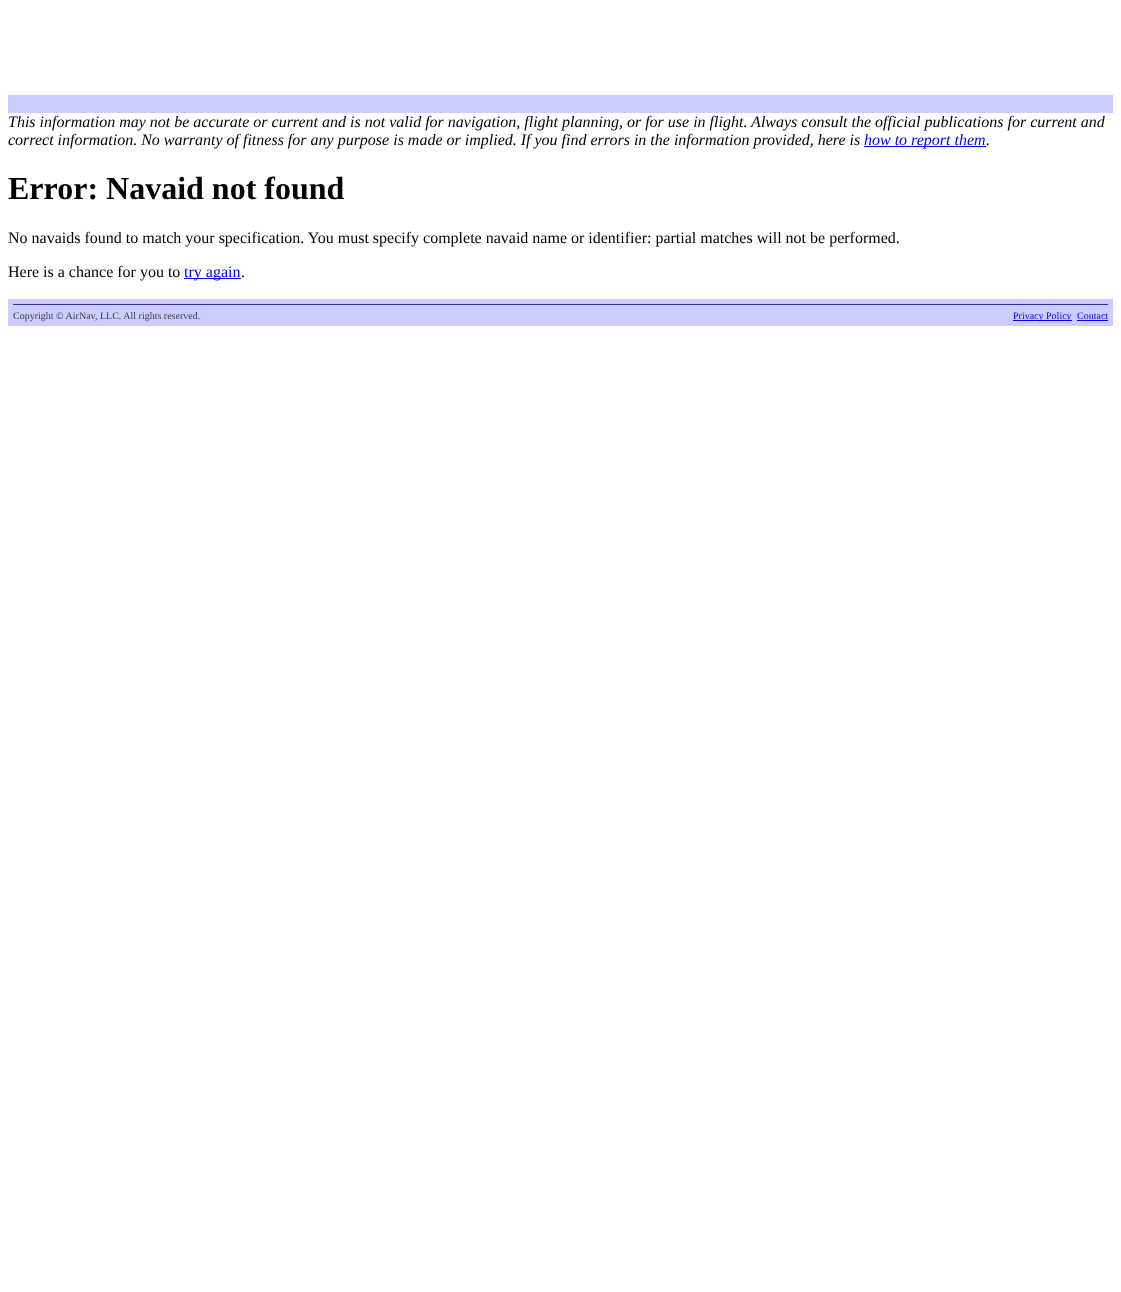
async function draw(canvas) {
  canvas.width = 1121
  canvas.height = 1292
  const ctx = canvas.getContext('2d')
  ctx.miterLimit = 4
  ctx.fontKerning = 'normal'

  ctx.fillStyle = '#fff'
  ctx.fillRect(0, 0, 1121, 1292)
  ctx.fillStyle = '#ccf'
  ctx.fillRect(8, 95, 1105, 18)
  ctx.font = 'italic 16px Liberation Serif'
  ctx.fillStyle = '#000'
  ctx.fillText('This information may not be accurate or current and is not valid for navigation, flight planning, or for use in flight. Always consult the official publications for current and', 8, 127)
  ctx.fillText('correct information. No warranty of fitness for any purpose is made or implied. If you find errors in the information provided, here is', 8, 145)
  ctx.fillStyle = '#00e'
  ctx.fillRect(864, 146, 122, 1)
  ctx.fillText('how to report them', 864, 145)
  ctx.fillStyle = '#000'
  ctx.fillText('.', 986, 145)
  ctx.font = 'bold 32px Liberation Serif'
  ctx.fillText('Error: Navaid not found', 8, 199)
  ctx.font = '16px Liberation Serif'
  ctx.fillText('No navaids found to match your specification. You must specify complete navaid name or identifier: partial matches will not be performed.', 8, 243)
  ctx.fillText('Here is a chance for you to', 8, 277)
  ctx.fillStyle = '#00e'
  ctx.fillRect(184, 278, 57, 1)
  ctx.fillText('try again', 184, 277)
  ctx.fillStyle = '#000'
  ctx.fillText('.', 241, 277)
  ctx.fillStyle = '#ccf'
  ctx.fillRect(8, 299, 1105, 27)
  ctx.fillStyle = '#339'
  ctx.fillRect(13, 304, 1095, 1)
  ctx.font = '10px Liberation Serif'
  ctx.fillStyle = '#404040'
  ctx.fillText('Copyright © AirNav, LLC. All rights reserved.', 13, 319)
  ctx.fillStyle = '#00e'
  ctx.fillRect(1013, 320, 59, 1)
  ctx.fillText('Privacy Policy', 1013, 319)
  ctx.fillText('Contact', 1077, 319)
  ctx.fillRect(1077, 320, 31, 1)
}

draw(document.querySelector('canvas'))
